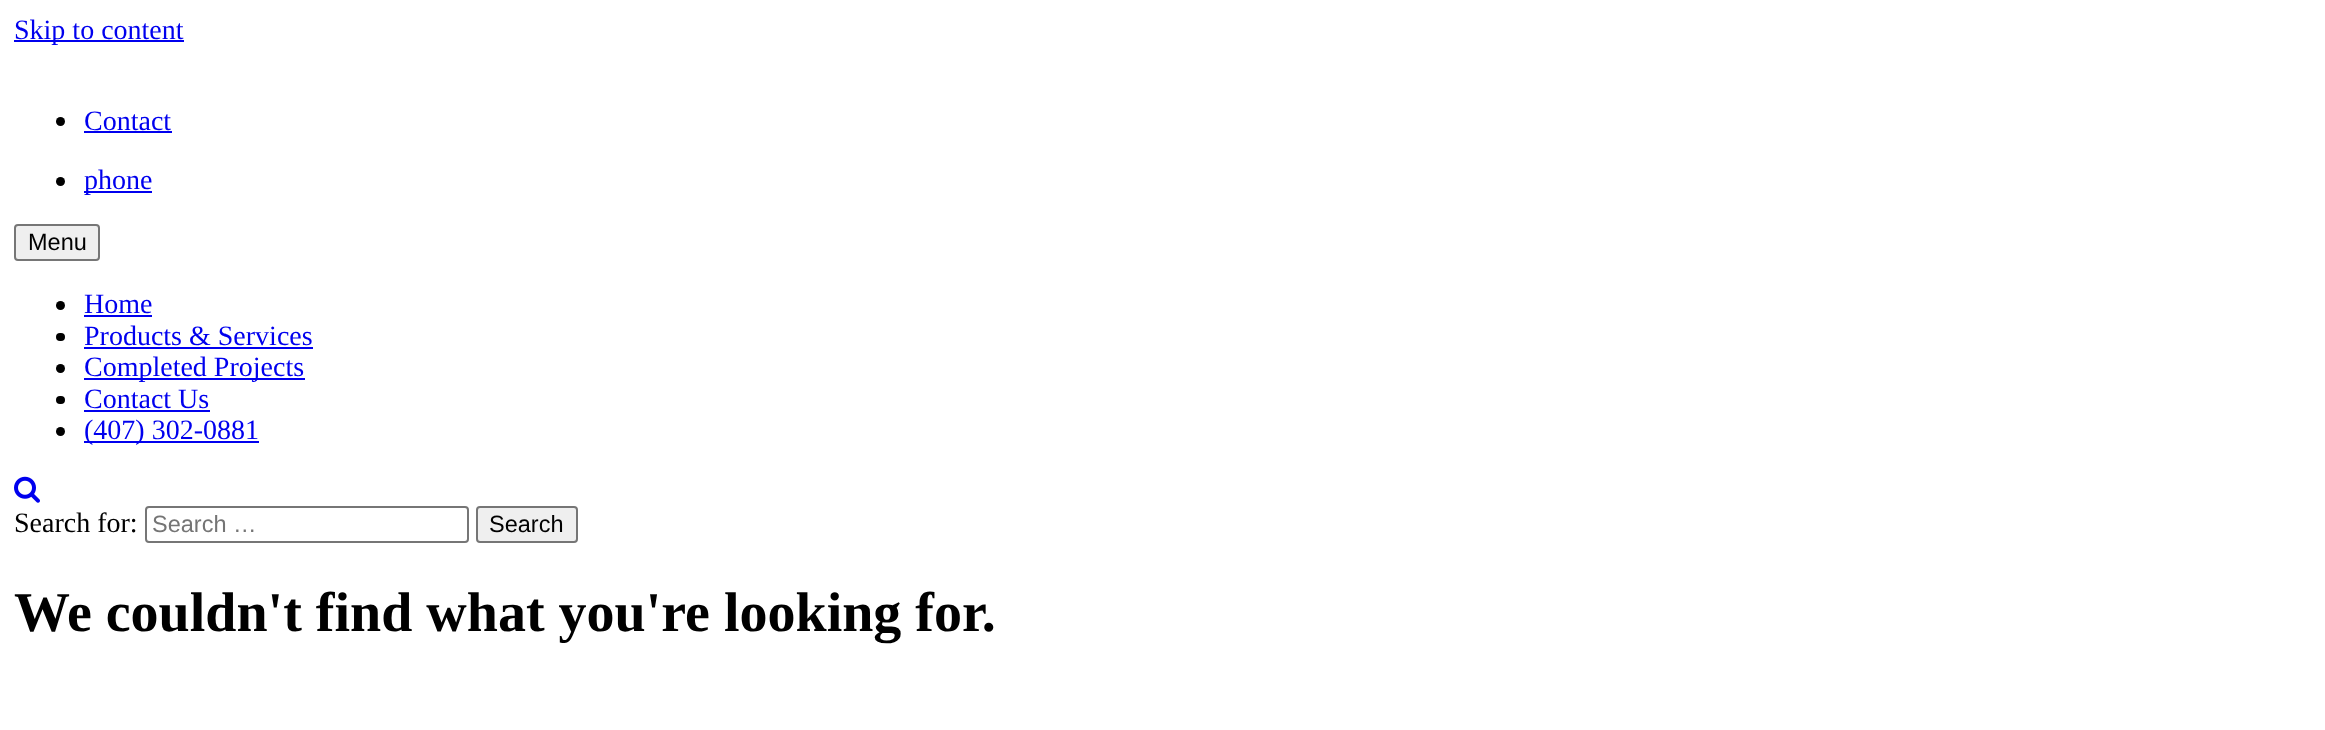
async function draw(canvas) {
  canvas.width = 2325
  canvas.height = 730
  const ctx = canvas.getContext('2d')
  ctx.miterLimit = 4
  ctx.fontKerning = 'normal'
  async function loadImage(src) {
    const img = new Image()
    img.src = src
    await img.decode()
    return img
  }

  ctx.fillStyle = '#fff'
  ctx.fillRect(0, 0, 2325, 730)
  ctx.fillStyle = '#00e'
  ctx.fillRect(14, 40, 170, 2)
  ctx.font = '28px Liberation Serif'
  ctx.fillText('Skip to content', 14, 39)
  ctx.fillStyle = '#000'
  ctx.beginPath()
  ctx.arc(60.5, 121.5, 4.5, 0, 2 * Math.PI)
  ctx.fill()
  ctx.fillStyle = '#00e'
  ctx.fillText('Contact', 84, 130)
  ctx.fillRect(84, 131, 88, 2)
  ctx.fillStyle = '#000'
  ctx.beginPath()
  ctx.arc(60.5, 181.5, 4.5, 0, 2 * Math.PI)
  ctx.fill()
  ctx.fillStyle = '#00e'
  ctx.fillRect(84, 191, 68, 2)
  ctx.fillText('phone', 84, 189)
  ctx.fillStyle = '#efefef'
  ctx.beginPath()
  ctx.roundRect(15, 225, 84, 35, 3)
  ctx.fill()
  ctx.strokeStyle = '#767676'
  ctx.lineWidth = 2
  ctx.stroke()
  ctx.font = '23.5px Liberation Sans'
  ctx.fillStyle = '#000'
  ctx.fillText('Menu', 28, 250)
  ctx.beginPath()
  ctx.arc(60.5, 305.5, 4.5, 0, 2 * Math.PI)
  ctx.fill()
  ctx.font = '28px Liberation Serif'
  ctx.fillStyle = '#00e'
  ctx.fillText('Home', 84, 313)
  ctx.fillRect(84, 315, 68, 2)
  ctx.fillStyle = '#000'
  ctx.beginPath()
  ctx.roundRect(56, 333, 9, 8, 4)
  ctx.fill()
  ctx.fillStyle = '#00e'
  ctx.fillText('Products & Services', 84, 345)
  ctx.fillRect(84, 347, 229, 2)
  ctx.fillStyle = '#000'
  ctx.beginPath()
  ctx.arc(60.5, 368.5, 4.5, 0, 2 * Math.PI)
  ctx.fill()
  ctx.fillStyle = '#00e'
  ctx.fillRect(84, 378, 221, 2)
  ctx.fillText('Completed Projects', 84, 376)
  ctx.fillStyle = '#000'
  ctx.beginPath()
  ctx.roundRect(56, 396, 9, 8, 4)
  ctx.fill()
  ctx.fillStyle = '#00e'
  ctx.fillText('Contact Us', 84, 408)
  ctx.fillRect(84, 410, 126, 2)
  ctx.fillStyle = '#000'
  ctx.beginPath()
  ctx.arc(60.5, 431.5, 4.5, 0, 2 * Math.PI)
  ctx.fill()
  ctx.fillStyle = '#00e'
  ctx.fillRect(84, 441, 175, 2)
  ctx.fillText('(407) 302-0881', 84, 439)
  ctx.drawImage(await loadImage('image0.png'), 14, 476, 26, 27)
  ctx.fillStyle = '#000'
  ctx.fillText('Search for:', 14, 532)
  ctx.beginPath()
  ctx.roundRect(146, 507, 322, 35, 3)
  ctx.stroke()
  ctx.font = '23.5px Liberation Sans'
  ctx.fillStyle = '#757575'
  ctx.fillText('Search …', 152, 532)
  ctx.fillStyle = '#efefef'
  ctx.beginPath()
  ctx.roundRect(477, 507, 100, 35, 3)
  ctx.fill()
  ctx.stroke()
  ctx.fillStyle = '#000'
  ctx.fillText('Search', 489, 532)
  ctx.font = 'bold 56px Liberation Serif'
  ctx.fillText('We couldn\'t find what you\'re looking for.', 14, 631)
}

draw(document.querySelector('canvas'))
